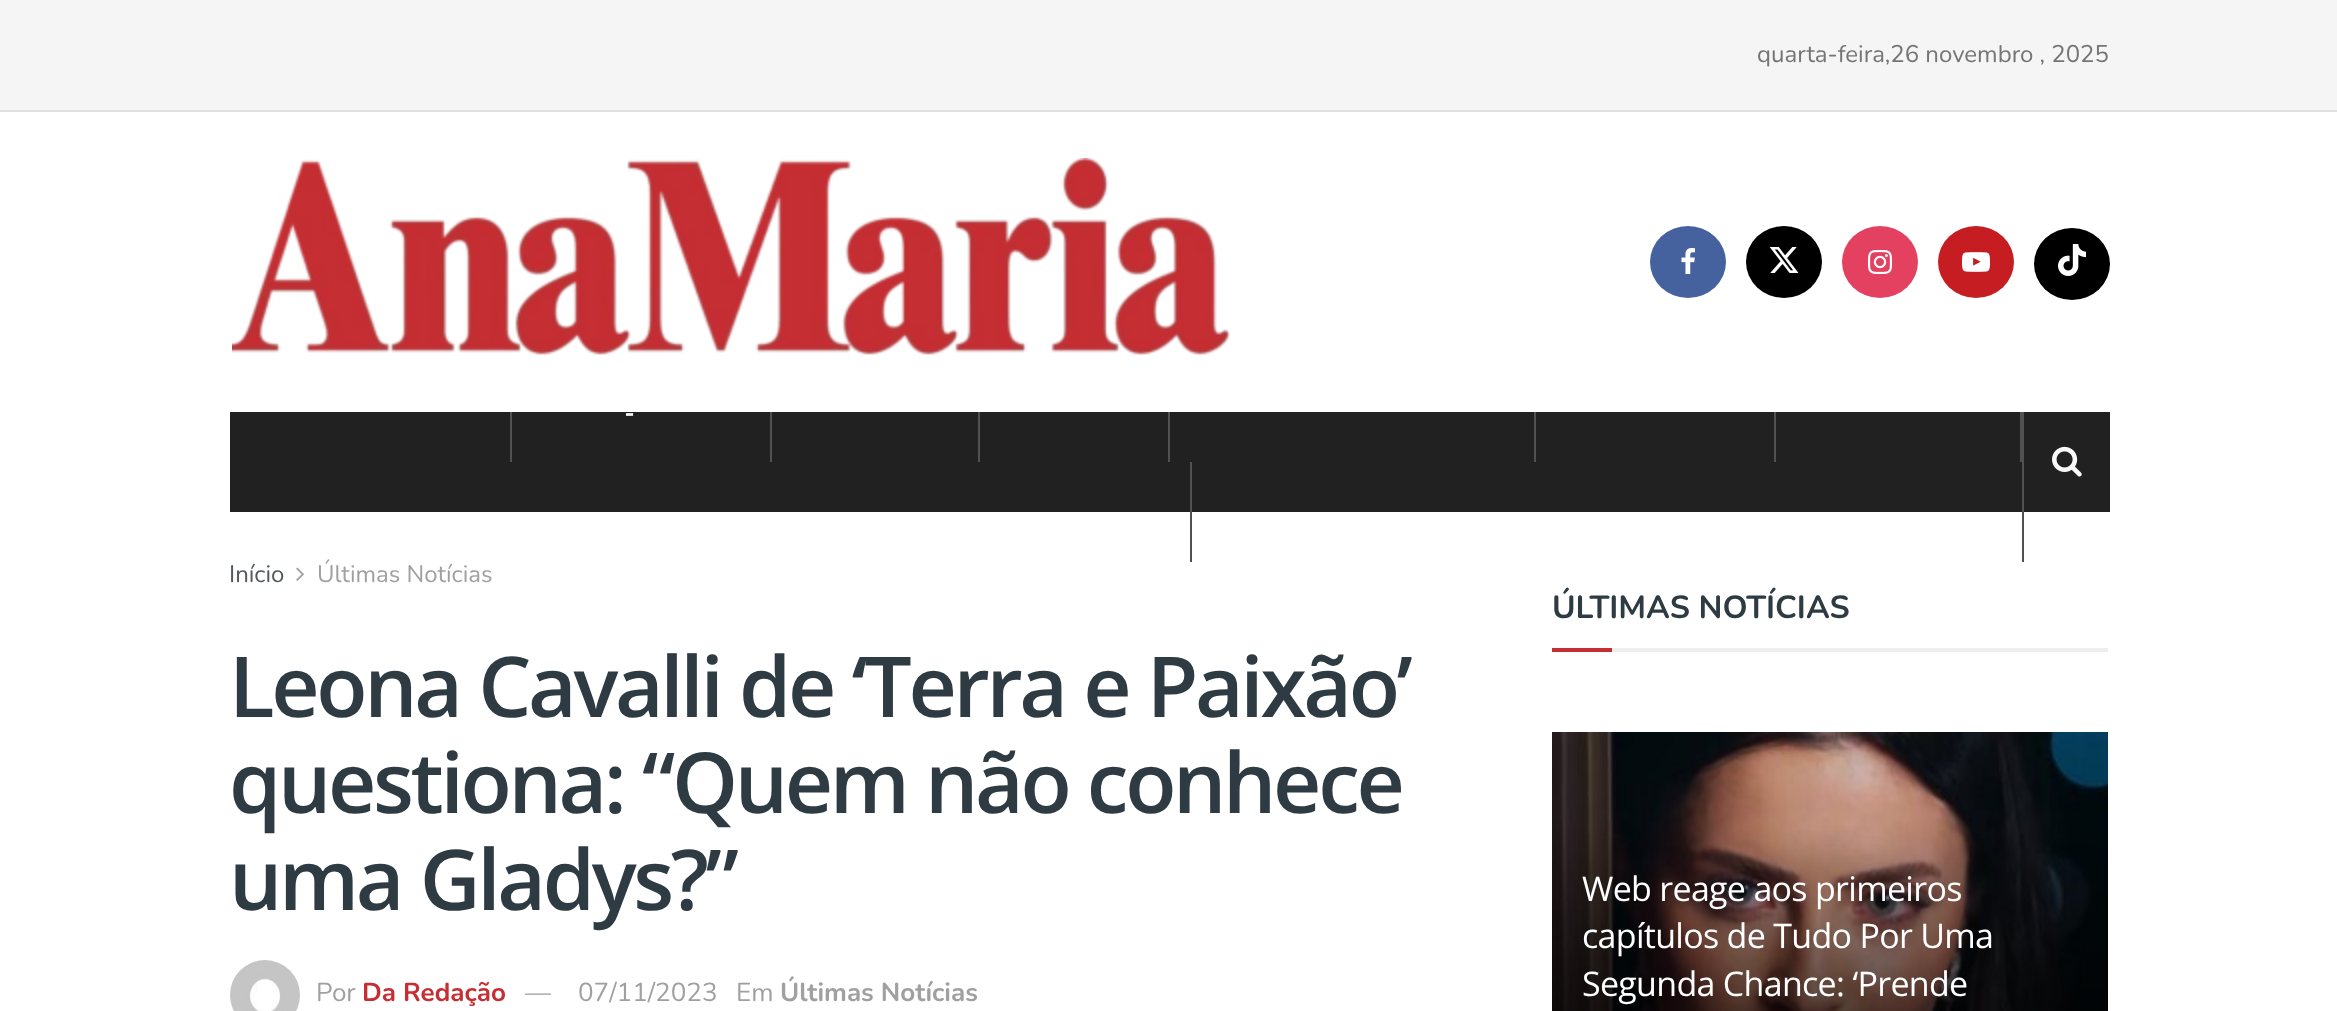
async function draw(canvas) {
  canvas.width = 2337
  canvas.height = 1011
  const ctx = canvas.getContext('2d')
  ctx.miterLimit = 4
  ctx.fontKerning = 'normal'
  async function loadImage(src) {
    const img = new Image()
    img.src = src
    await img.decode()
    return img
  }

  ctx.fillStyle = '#fff'
  ctx.fillRect(0, 0, 2337, 1011)
  ctx.fillStyle = '#f5f5f5'
  ctx.fillRect(0, 0, 2337, 110)
  ctx.fillStyle = '#e0e0e0'
  ctx.fillRect(0, 110, 2337, 2)
  ctx.font = '24px Nunito'
  ctx.fillStyle = '#757575'
  ctx.fillText('quarta-feira,26 novembro , 2025', 1757, 62)
  ctx.drawImage(await loadImage('image0.png'), 232, 158, 999, 197)
  ctx.fillStyle = '#45629f'
  ctx.beginPath()
  ctx.ellipse(1688, 262, 38, 36, 0, 0, 2 * Math.PI)
  ctx.fill()
  ctx.drawImage(await loadImage('image1.png'), 1681, 248, 14, 26)
  ctx.fillStyle = '#000'
  ctx.beginPath()
  ctx.ellipse(1784, 262, 38, 36, 0, 0, 2 * Math.PI)
  ctx.fill()
  ctx.drawImage(await loadImage('image2.png'), 1769, 247, 30, 26)
  ctx.fillStyle = '#e4405f'
  ctx.beginPath()
  ctx.ellipse(1880, 262, 38, 36, 0, 0, 2 * Math.PI)
  ctx.fill()
  ctx.drawImage(await loadImage('image3.png'), 1868, 250, 24, 24)
  ctx.fillStyle = '#c61d23'
  ctx.beginPath()
  ctx.ellipse(1976, 262, 38, 36, 0, 0, 2 * Math.PI)
  ctx.fill()
  ctx.drawImage(await loadImage('image4.png'), 1962, 252, 28, 20)
  ctx.fillStyle = '#000'
  ctx.beginPath()
  ctx.ellipse(2072, 264, 38, 36, 0, 0, 2 * Math.PI)
  ctx.fill()
  ctx.drawImage(await loadImage('image5.png'), 2058, 244, 28, 32)
  ctx.fillStyle = '#212121'
  ctx.fillRect(230, 412, 1880, 100)
  ctx.fillStyle = '#515151'
  ctx.fillRect(2022, 412, 2, 150)
  ctx.fillRect(510, 412, 2, 50)
  ctx.fillRect(770, 412, 2, 50)
  ctx.font = '600 28px Open Sans'
  ctx.fillStyle = '#f5f5f5'
  ctx.fillText('-', 625, 422)
  ctx.fillStyle = '#515151'
  ctx.fillRect(978, 412, 2, 50)
  ctx.fillRect(1168, 412, 2, 50)
  ctx.fillRect(1534, 412, 2, 50)
  ctx.fillRect(1774, 412, 2, 50)
  ctx.fillRect(2020, 412, 2, 50)
  ctx.fillRect(1190, 462, 2, 100)
  ctx.drawImage(await loadImage('image6.png'), 2052, 446, 30, 31)
  ctx.font = '24px Nunito'
  ctx.fillStyle = '#53585c'
  ctx.fillText('Início', 229, 582)
  ctx.drawImage(await loadImage('image7.png'), 296, 567, 8, 14)
  ctx.fillStyle = '#a0a0a0'
  ctx.fillText('Últimas Notícias', 317, 582)
  ctx.letterSpacing = '-3.35px'
  ctx.font = '600 84px Open Sans'
  ctx.fillStyle = '#2e3b43'
  ctx.fillText('Leona Cavalli de ‘Terra e Paixão’', 229, 717)
  ctx.fillText('questiona: “Quem não conhece', 229, 813)
  ctx.fillText('uma Gladys?”', 229, 910)
  ctx.drawImage(await loadImage('image8.png'), 230, 960, 70, 51)
  ctx.letterSpacing = '0px'
  ctx.font = '26px Nunito'
  ctx.fillStyle = '#a0a0a0'
  ctx.fillText('Por', 316, 1001)
  ctx.font = 'bold 26px Nunito'
  ctx.fillStyle = '#c52f33'
  ctx.fillText('Da Redação', 362, 1001)
  ctx.font = '26px Nunito'
  ctx.fillStyle = '#a0a0a0'
  ctx.fillText('—', 525, 1001)
  ctx.fillText('07/11/2023', 578, 1001)
  ctx.fillText('Em', 736, 1001)
  ctx.font = 'bold 26px Nunito'
  ctx.fillText('Últimas Notícias', 780, 1001)
  ctx.fillStyle = '#eee'
  ctx.fillRect(1612, 648, 496, 4)
  ctx.font = 'bold 32px Nunito'
  ctx.fillStyle = '#2e3b43'
  ctx.fillText('ÚLTIMAS NOTÍCIAS', 1552, 618)
  ctx.fillStyle = '#c52f33'
  ctx.fillRect(1552, 648, 60, 4)
  ctx.drawImage(await loadImage('image9.png'), 1552, 732, 556, 279)
  ctx.letterSpacing = '-0.7px'
  ctx.font = '34px Open Sans'
  ctx.fillStyle = '#fff'
  ctx.fillText('Web reage aos primeiros', 1582, 901)
  ctx.fillText('capítulos de Tudo Por Uma', 1582, 948)
  ctx.fillText('Segunda Chance: ‘Prende', 1582, 996)
}

draw(document.querySelector('canvas'))
